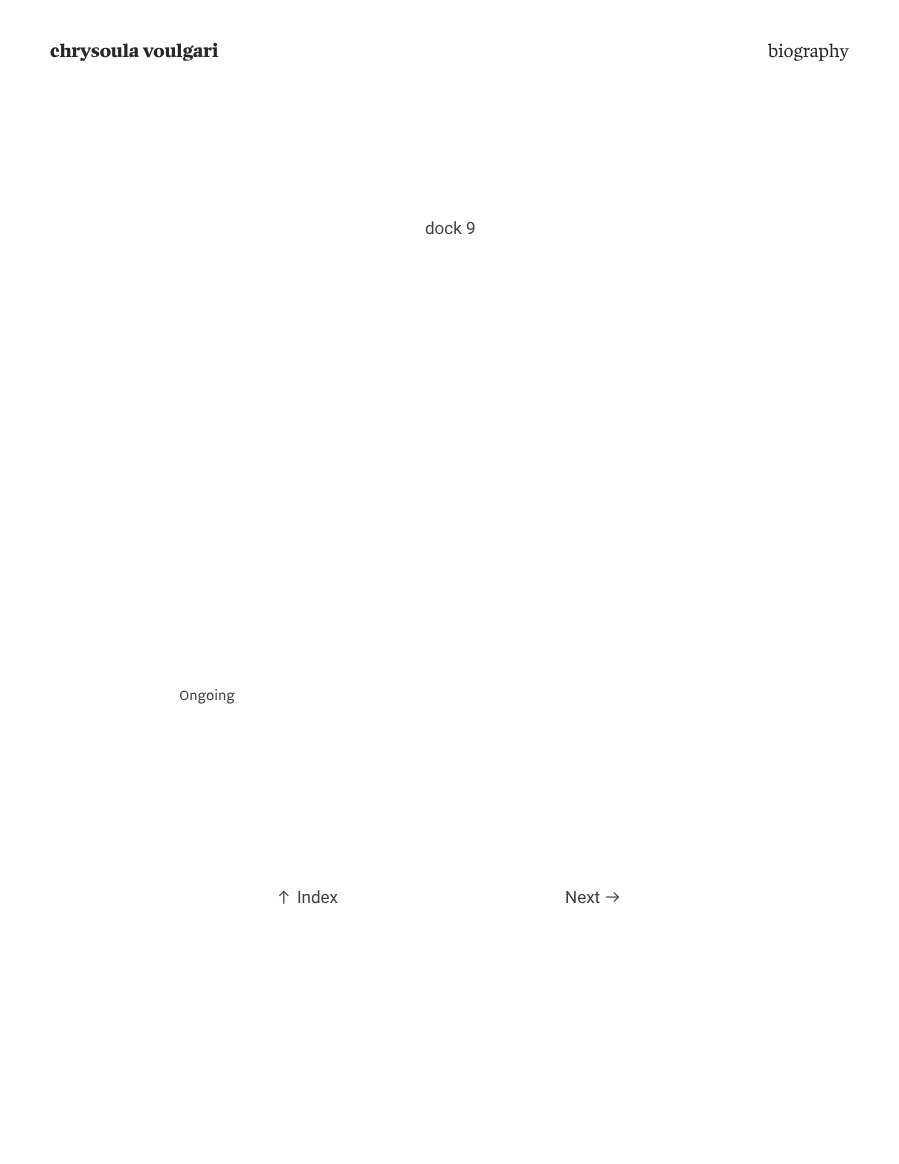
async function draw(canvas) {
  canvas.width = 899
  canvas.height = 1164
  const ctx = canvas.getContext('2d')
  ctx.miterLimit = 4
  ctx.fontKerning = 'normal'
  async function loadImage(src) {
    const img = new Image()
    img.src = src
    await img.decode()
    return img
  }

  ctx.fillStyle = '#fff'
  ctx.fillRect(0, 0, 899, 1164)
  ctx.font = 'bold 18.5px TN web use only'
  ctx.fillStyle = '#262626'
  ctx.fillText('chrysoula voulgari', 50, 57)
  ctx.font = '18.5px TN web use only'
  ctx.fillText('biography', 768, 57)
  ctx.font = '17px Roboto'
  ctx.fillStyle = '#404040'
  ctx.fillText('dock 9', 425, 234)
  ctx.font = '17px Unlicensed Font'
  ctx.fillText('Ongoing', 179, 700)
  ctx.drawImage(await loadImage('image0.png'), 279, 890, 10, 14)
  ctx.font = '17px Roboto'
  ctx.fillText('Index', 297, 903)
  ctx.fillText('Next', 565, 903)
  ctx.drawImage(await loadImage('image1.png'), 606, 892, 14, 10)
}

draw(document.querySelector('canvas'))
